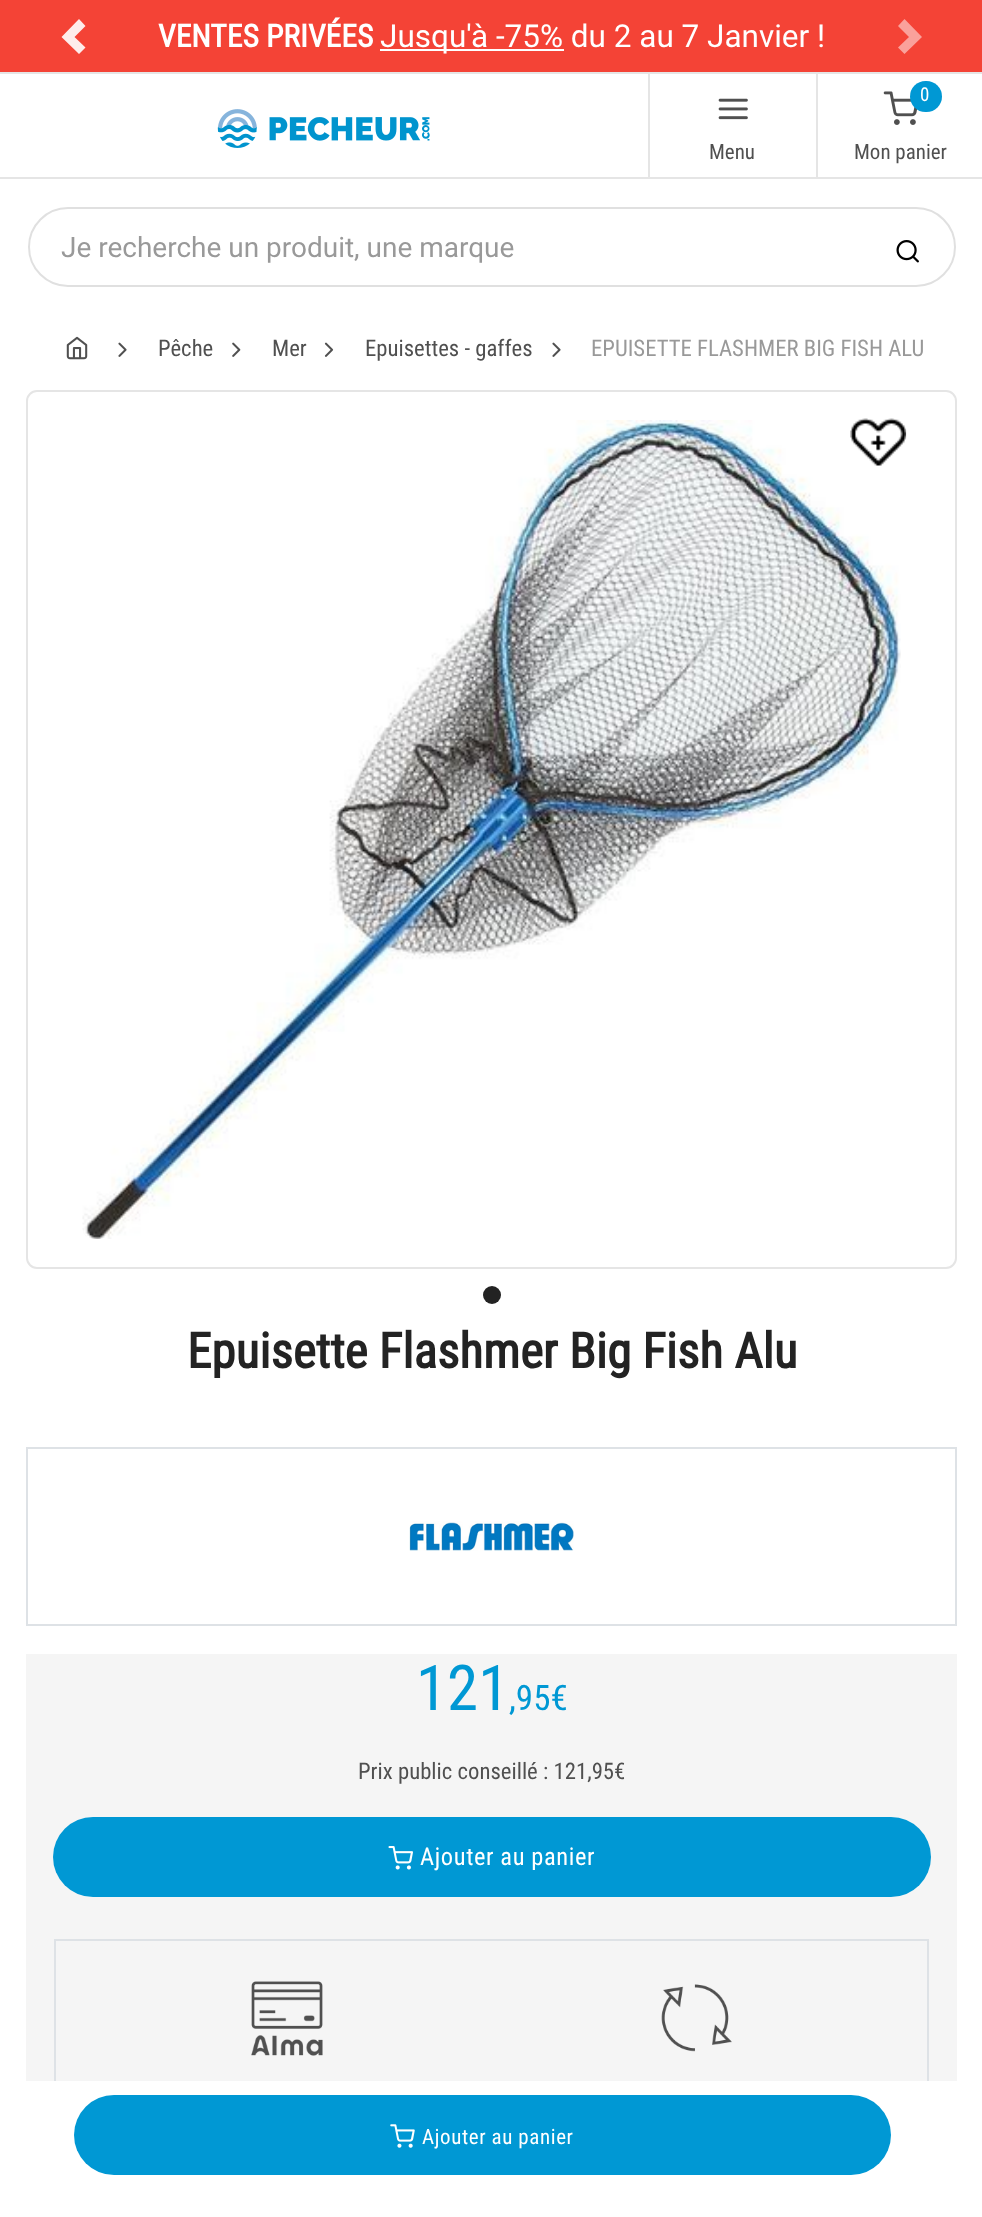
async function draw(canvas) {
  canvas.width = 982
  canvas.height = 2217
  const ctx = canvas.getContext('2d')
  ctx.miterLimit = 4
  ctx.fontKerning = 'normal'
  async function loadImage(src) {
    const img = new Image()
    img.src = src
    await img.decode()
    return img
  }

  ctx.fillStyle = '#fff'
  ctx.fillRect(0, 0, 982, 2217)
  ctx.fillStyle = '#f44336'
  ctx.fillRect(0, 0, 982, 72)
  ctx.fillStyle = '#feeceb'
  ctx.beginPath()
  ctx.moveTo(79, 19)
  ctx.lineTo(61.5, 37)
  ctx.lineTo(79, 54)
  ctx.lineTo(85.5, 47.5)
  ctx.lineTo(74.5, 37)
  ctx.lineTo(85.5, 26)
  ctx.closePath()
  ctx.fill()
  ctx.font = 'bold 31.5px Roboto Condensed'
  ctx.fillStyle = '#fff'
  ctx.fillText('VENTES PRIVÉES', 158, 47)
  ctx.fillRect(380, 49, 184, 2)
  ctx.font = '31.5px Roboto'
  ctx.fillText('Jusqu\'à -75% du 2 au 7 Janvier !', 380, 47)
  ctx.fillStyle = '#faa19b'
  ctx.beginPath()
  ctx.moveTo(904.5, 19)
  ctx.lineTo(898, 26)
  ctx.lineTo(909, 37)
  ctx.lineTo(898, 47.5)
  ctx.lineTo(904.5, 54)
  ctx.lineTo(922, 37)
  ctx.closePath()
  ctx.fill()
  ctx.fillStyle = '#e5e5e5'
  ctx.fillRect(0, 72, 982, 2)
  ctx.fillRect(0, 177, 982, 2)
  ctx.drawImage(await loadImage('image0.png'), 217, 109, 213, 39)
  ctx.fillRect(648, 74, 2, 103)
  ctx.drawImage(await loadImage('image1.png'), 718, 98, 30, 22)
  ctx.font = '21px Roboto Condensed'
  ctx.fillStyle = '#505050'
  ctx.fillText('Menu', 709, 159)
  ctx.fillStyle = '#e5e5e5'
  ctx.fillRect(816, 74, 2, 103)
  ctx.drawImage(await loadImage('image2.png'), 883, 91, 35, 34)
  ctx.fillStyle = '#0098d4'
  ctx.beginPath()
  ctx.roundRect(910, 81, 32, 31, 15.5)
  ctx.fill()
  ctx.font = '19px Roboto Condensed'
  ctx.fillStyle = '#fff'
  ctx.fillText('0', 920, 101)
  ctx.font = '21px Roboto Condensed'
  ctx.fillStyle = '#505050'
  ctx.fillText('Mon panier', 854, 159)
  ctx.beginPath()
  ctx.roundRect(29, 208, 926, 78, 39)
  ctx.strokeStyle = '#e0e0e0'
  ctx.lineWidth = 2
  ctx.stroke()
  ctx.font = '28px Roboto'
  ctx.fillStyle = '#999'
  ctx.fillText('Je recherche un produit, une marque', 61, 257)
  ctx.drawImage(await loadImage('image3.png'), 896, 240, 23, 23)
  ctx.drawImage(await loadImage('image4.png'), 66, 336, 22, 24)
  ctx.drawImage(await loadImage('image5.png'), 118, 342, 9, 15)
  ctx.font = '22.75px Roboto Condensed'
  ctx.fillStyle = '#505050'
  ctx.fillText('Pêche', 158, 356)
  ctx.drawImage(await loadImage('image6.png'), 232, 342, 9, 15)
  ctx.fillText('Mer', 272, 356)
  ctx.drawImage(await loadImage('image7.png'), 324, 342, 10, 15)
  ctx.fillText('Epuisettes - gaffes', 365, 356)
  ctx.drawImage(await loadImage('image5.png'), 552, 342, 9, 15)
  ctx.fillStyle = '#999'
  ctx.fillText('EPUISETTE FLASHMER BIG FISH ALU', 591, 356)
  ctx.beginPath()
  ctx.roundRect(27, 391, 929, 877, 10)
  ctx.strokeStyle = '#e5e5e5'
  ctx.stroke()
  ctx.drawImage(await loadImage('image9.png'), 82, 420, 819, 819)
  ctx.drawImage(await loadImage('image8.png'), 850, 418, 57, 48)
  ctx.fillStyle = '#232323'
  ctx.beginPath()
  ctx.arc(492, 1295, 9, 0, 2 * Math.PI)
  ctx.fill()
  ctx.font = 'bold 49px Roboto Condensed'
  ctx.fillText('Epuisette Flashmer Big Fish Alu', 187, 1368)
  ctx.strokeStyle = '#dee2e6'
  ctx.strokeRect(27, 1448, 929, 177)
  ctx.drawImage(await loadImage('image10.png'), 409, 1521, 165, 30)
  ctx.fillStyle = '#f5f5f5'
  ctx.fillRect(26, 1654, 931, 427)
  ctx.font = '63px Roboto Condensed'
  ctx.fillStyle = '#0098d4'
  ctx.fillText('121', 416, 1710)
  ctx.font = '35px Roboto Condensed'
  ctx.fillText(',95€', 509, 1710)
  ctx.font = '22.75px Roboto Condensed'
  ctx.fillStyle = '#505050'
  ctx.fillText('Prix public conseillé : 121,95€', 358, 1779)
  ctx.fillStyle = '#0098d4'
  ctx.beginPath()
  ctx.roundRect(53, 1817, 878, 80, 40)
  ctx.fill()
  ctx.drawImage(await loadImage('image11.png'), 388, 1846, 25, 24)
  ctx.letterSpacing = '0.6px'
  ctx.font = '24.5px Roboto Condensed'
  ctx.fillStyle = '#fff'
  ctx.fillText('Ajouter au panier', 420, 1865)
  ctx.strokeRect(55, 1940, 873, 196)
  ctx.drawImage(await loadImage('image12.png'), 251, 1981, 72, 75)
  ctx.drawImage(await loadImage('image13.png'), 661, 1984, 71, 68)
  ctx.fillRect(54, 2081, 875, 56)
  ctx.fillStyle = '#0098d4'
  ctx.beginPath()
  ctx.roundRect(74, 2095, 817, 80, 40)
  ctx.fill()
  ctx.drawImage(await loadImage('image14.png'), 390, 2124, 25, 24)
  ctx.font = '21px Roboto Condensed'
  ctx.fillStyle = '#fff'
  ctx.fillText('Ajouter au panier', 422, 2144)
}

draw(document.querySelector('canvas'))
